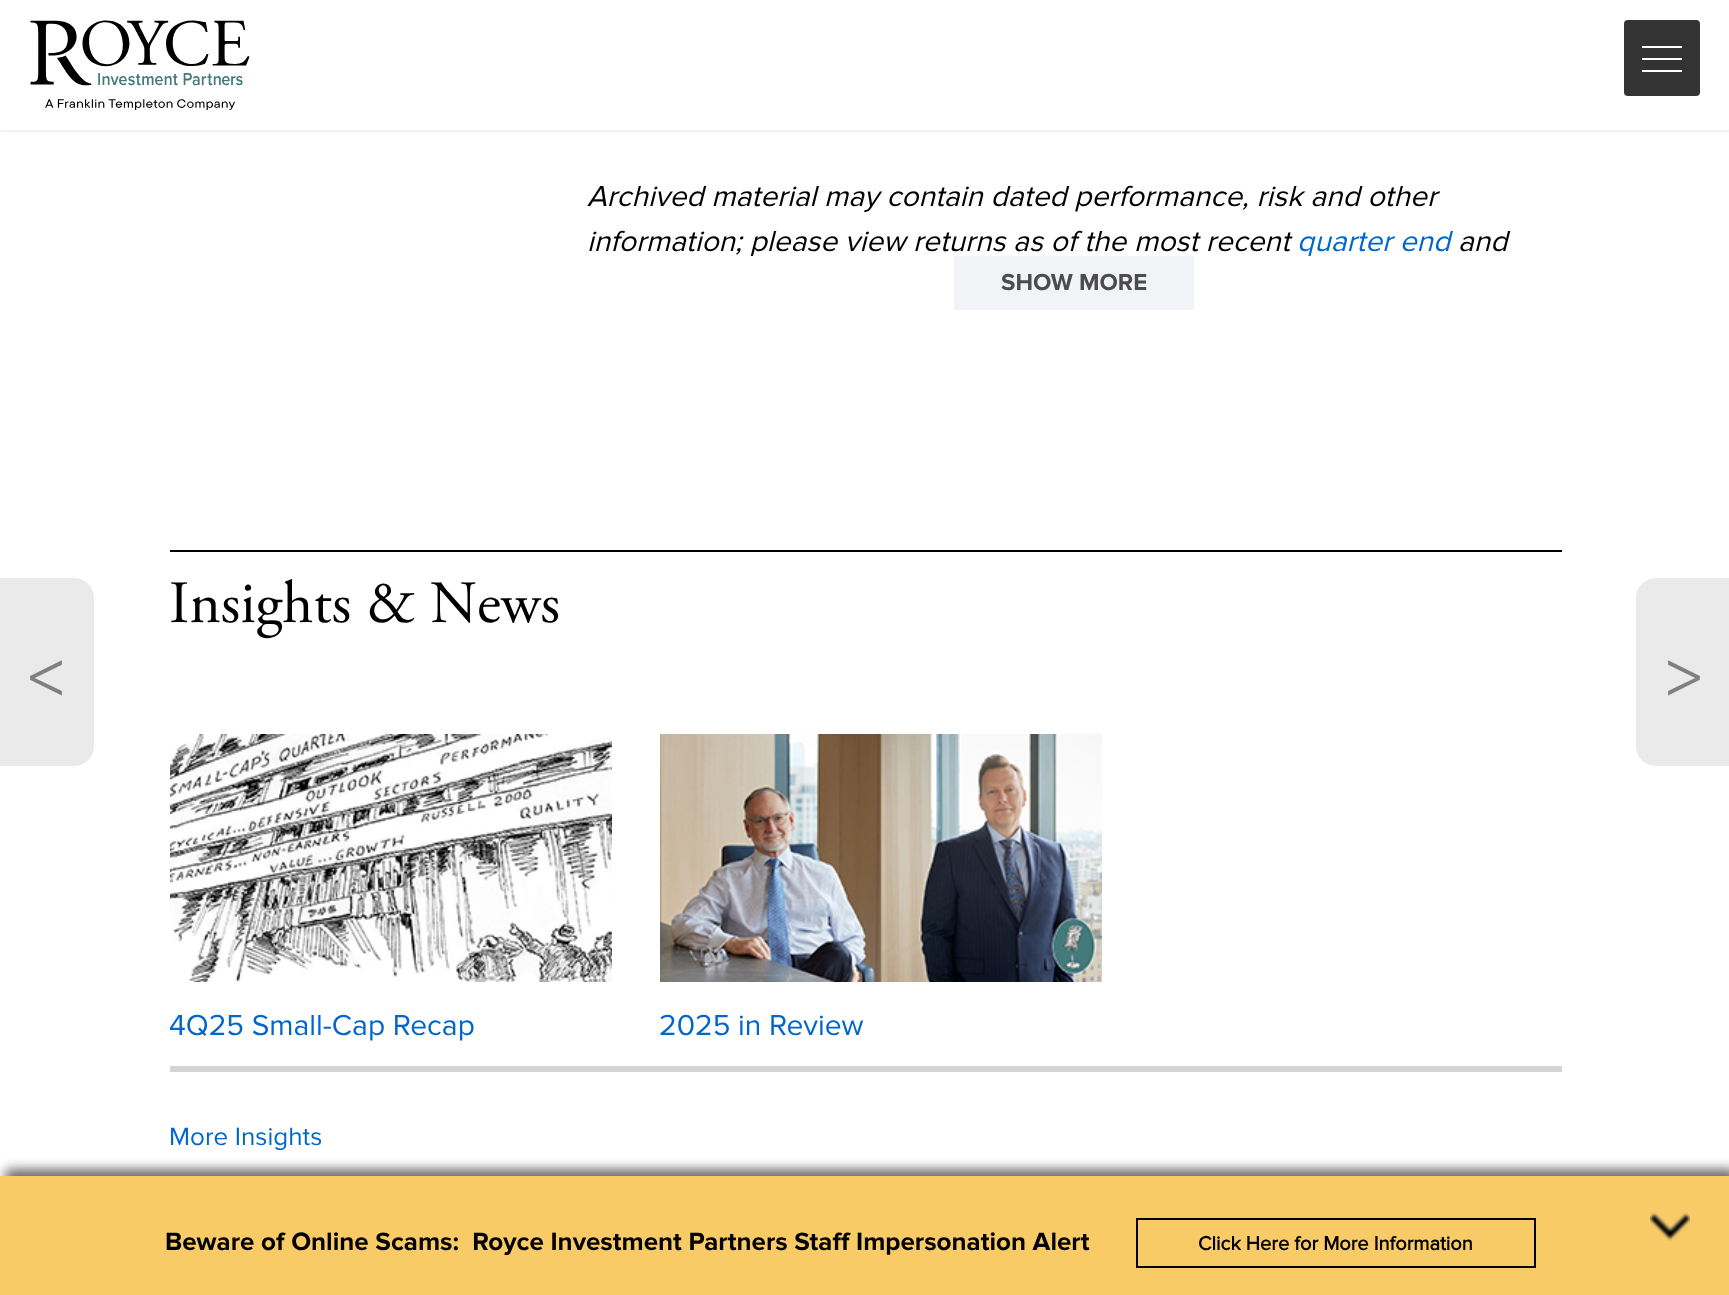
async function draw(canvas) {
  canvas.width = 1729
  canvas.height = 1295
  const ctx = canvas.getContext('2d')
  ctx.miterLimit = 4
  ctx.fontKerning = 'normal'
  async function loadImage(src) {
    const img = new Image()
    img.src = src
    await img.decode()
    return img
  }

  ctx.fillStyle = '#fff'
  ctx.fillRect(0, 0, 1729, 1295)
  ctx.fillStyle = '#efefef'
  ctx.filter = 'blur(1px)'
  ctx.beginPath()
  ctx.rect(0, 2, 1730, 130)
  ctx.fill()
  ctx.filter = 'none'
  ctx.fillStyle = '#fff'
  ctx.fillRect(0, 1, 1729, 129)
  ctx.drawImage(await loadImage('image0.png'), 30, 20, 220, 90)
  ctx.fillStyle = '#333'
  ctx.beginPath()
  ctx.roundRect(1624, 20, 76, 76, 4)
  ctx.fill()
  ctx.fillStyle = '#fff'
  ctx.fillRect(1642, 58, 40, 2)
  ctx.fillRect(1642, 46, 40, 2)
  ctx.fillRect(1642, 70, 40, 2)
  ctx.font = 'italic 30px Proxima Nova'
  ctx.fillStyle = '#000'
  ctx.fillText('Archived material may contain dated performance, risk and other', 587, 206)
  ctx.save()
  ctx.beginPath()
  ctx.rect(586, 174, 974, 82)
  ctx.clip()
  ctx.fillText('information; please view returns as of the most recent', 587, 251)
  ctx.fillStyle = '#06c'
  ctx.fillText('quarter end', 1297, 251)
  ctx.restore()
  ctx.fillText('and', 1458, 251)
  ctx.fillStyle = '#f1f3f7'
  ctx.fillRect(954, 256, 240, 54)
  ctx.font = 'bold 24px Proxima Nova'
  ctx.fillStyle = '#4c4c4c'
  ctx.fillText('SHOW MORE', 1001, 290)
  ctx.fillStyle = '#eaeaea'
  ctx.beginPath()
  ctx.moveTo(-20, 578)
  ctx.lineTo(74, 578)
  ctx.bezierCurveTo(85, 578, 94, 587, 94, 598)
  ctx.lineTo(94, 746)
  ctx.bezierCurveTo(94, 757, 85, 766, 74, 766)
  ctx.lineTo(-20, 766)
  ctx.closePath()
  ctx.fill()
  ctx.font = '72px Proxima Nova'
  ctx.fillStyle = '#808080'
  ctx.fillText('<', 28, 702)
  ctx.fillStyle = '#eaeaea'
  ctx.beginPath()
  ctx.moveTo(1656, 578)
  ctx.lineTo(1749, 578)
  ctx.lineTo(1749, 766)
  ctx.lineTo(1656, 766)
  ctx.bezierCurveTo(1645, 766, 1636, 757, 1636, 746)
  ctx.lineTo(1636, 598)
  ctx.bezierCurveTo(1636, 587, 1645, 578, 1656, 578)
  ctx.closePath()
  ctx.fill()
  ctx.fillStyle = '#808080'
  ctx.fillText('>', 1666, 702)
  ctx.fillStyle = '#000'
  ctx.fillRect(170, 550, 1392, 2)
  ctx.font = '60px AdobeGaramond'
  ctx.fillText('Insights & News', 169, 622)
  ctx.fillStyle = '#d4d4d4'
  ctx.fillRect(170, 1066, 1392, 6)
  ctx.drawImage(await loadImage('image1.png'), 170, 734, 442, 248)
  ctx.font = '30px Proxima Nova'
  ctx.fillStyle = '#06c'
  ctx.fillText('4Q25 Small-Cap Recap', 169, 1035)
  ctx.drawImage(await loadImage('image2.png'), 660, 734, 442, 248)
  ctx.fillText('2025 in Review', 659, 1035)
  ctx.font = '26px Proxima Nova'
  ctx.fillText('More Insights', 169, 1145)
  ctx.fillStyle = '#0000005c'
  ctx.filter = 'blur(6px)'
  ctx.beginPath()
  ctx.rect(6, 1170, 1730, 120)
  ctx.fill()
  ctx.filter = 'none'
  ctx.filter = 'blur(6px)'
  ctx.beginPath()
  ctx.rect(6, 1170, 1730, 120)
  ctx.fill()
  ctx.filter = 'none'
  ctx.fillStyle = '#f8cb66'
  ctx.fillRect(0, 1176, 1729, 119)
  ctx.drawImage(await loadImage('image3.png'), 1650, 1212, 40, 29)
  ctx.font = 'bold 26px Proxima Nova'
  ctx.fillStyle = '#000'
  ctx.fillText('Beware of Online Scams:  Royce Investment Partners Staff Impersonation Alert', 165, 1250)
  ctx.strokeStyle = '#000'
  ctx.lineWidth = 2
  ctx.strokeRect(1137, 1219, 398, 48)
  ctx.font = 'bold 20px "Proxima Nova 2"'
  ctx.fillText('Click Here for More Information', 1198, 1250)
}

draw(document.querySelector('canvas'))
